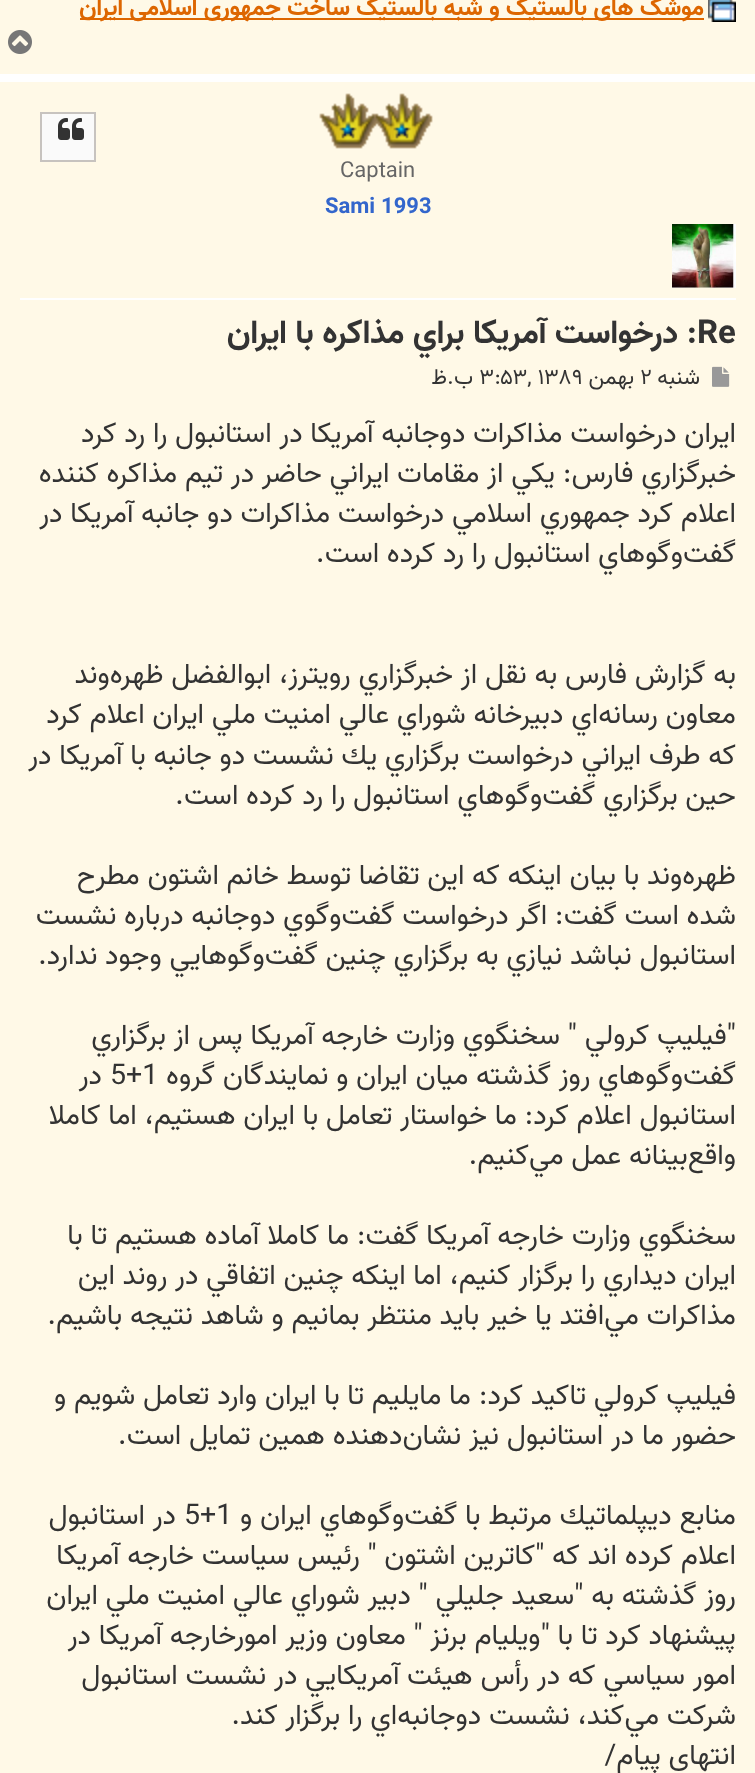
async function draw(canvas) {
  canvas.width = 755
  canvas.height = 1773
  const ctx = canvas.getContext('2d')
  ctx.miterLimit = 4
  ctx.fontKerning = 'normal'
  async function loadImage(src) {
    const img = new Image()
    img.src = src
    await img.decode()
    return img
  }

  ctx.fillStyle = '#fff'
  ctx.fillRect(0, 0, 755, 1773)
  ctx.fillStyle = '#fff9e7'
  ctx.fillRect(0, 0, 755, 74)
  ctx.drawImage(await loadImage('image0.png'), 708, 0, 28, 22)
  ctx.fillStyle = '#d60'
  ctx.fillRect(80, 18, 624, 2)
  ctx.direction = 'rtl'
  ctx.font = 'bold 24.2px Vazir'
  ctx.fillText('موشک های بالستیک و شبه بالستیک ساخت جمهوری اسلامی ایران', 704, 15)
  ctx.drawImage(await loadImage('image1.png'), 8, 30, 24, 24)
  ctx.fillStyle = '#fff9e7'
  ctx.fillRect(0, 82, 755, 1691)
  ctx.fillStyle = '#fff'
  ctx.fillRect(20, 298, 716, 2)
  ctx.drawImage(await loadImage('image2.png'), 319, 93, 114, 56)
  ctx.direction = 'ltr'
  ctx.font = '22px Vazir'
  ctx.fillStyle = '#666'
  ctx.fillText('Captain', 340, 177)
  ctx.font = 'bold 22px Vazir'
  ctx.fillStyle = '#36c'
  ctx.fillText('Sami 1993', 325, 213)
  ctx.drawImage(await loadImage('image3.png'), 672, 224, 64, 64)
  ctx.fillStyle = '#fafafa'
  ctx.beginPath()
  ctx.rect(41, 113, 54, 48)
  ctx.fill()
  ctx.strokeStyle = '#c7c3bf'
  ctx.lineWidth = 2
  ctx.stroke()
  ctx.drawImage(await loadImage('image4.png'), 58, 118, 26, 22)
  ctx.font = 'bold 33px Vazir'
  ctx.fillStyle = '#333'
  ctx.fillText('Re', 697, 343)
  ctx.direction = 'rtl'
  ctx.fillText(': درخواست آمريكا براي مذاكره با ايران', 697, 343)
  ctx.drawImage(await loadImage('image5.png'), 712, 366, 18, 21)
  ctx.font = '22px Vazir'
  ctx.fillText('شنبه', 700, 384)
  ctx.direction = 'ltr'
  ctx.fillText('۲', 640, 384)
  ctx.direction = 'rtl'
  ctx.fillText('بهمن', 634, 384)
  ctx.direction = 'ltr'
  ctx.fillText('۳:۵۳, ۱۳۸۹', 479, 384)
  ctx.direction = 'rtl'
  ctx.fillText('ب.ظ', 473, 384)
  ctx.font = '28.6px Vazir'
  ctx.fillText('ايران درخواست مذاكرات دوجانبه آمريكا در استانبول را رد كرد', 736, 442)
  ctx.fillText('خبرگزاري فارس: يكي از مقامات ايراني حاضر در تيم مذاكره كننده', 736, 482)
  ctx.fillText('اعلام كرد جمهوري اسلامي درخواست مذاكرات دو جانبه آمريكا در', 736, 522)
  ctx.fillText('گفت‌وگوهاي استانبول را رد كرده است.', 736, 562)
  ctx.fillText('به گزارش فارس به نقل از خبرگزاري رويترز، ابوالفضل ظهره‌وند', 736, 683)
  ctx.fillText('معاون رسانه‌اي دبيرخانه شوراي عالي امنيت ملي ايران اعلام كرد', 736, 723)
  ctx.fillText('كه طرف ايراني درخواست برگزاري يك نشست دو جانبه با آمريكا در', 736, 764)
  ctx.fillText('حين برگزاري گفت‌‌وگوهاي استانبول را رد كرده است.', 736, 804)
  ctx.fillText('ظهره‌وند با بيان اينكه كه اين تقاضا توسط خانم اشتون مطرح', 736, 884)
  ctx.fillText('شده است گفت: اگر درخواست گفت‌وگوي دوجانبه درباره نشست', 736, 924)
  ctx.fillText('استانبول نباشد نيازي به برگزاري چنين گفت‌وگوهايي وجود ندارد.', 736, 964)
  ctx.fillText('"فيليپ كرولي " سخنگوي وزارت خارجه آمريكا پس از برگزاري', 736, 1044)
  ctx.fillText('گفت‌وگوهاي روز گذشته ميان ايران و نمايندگان گروه', 736, 1084)
  ctx.direction = 'ltr'
  ctx.fillText('5+1', 110, 1084)
  ctx.direction = 'rtl'
  ctx.fillText('در', 102, 1084)
  ctx.fillText('استانبول اعلام كرد: ما خواستار تعامل با ايران هستيم، اما كاملا', 736, 1124)
  ctx.fillText('واقع‌بينانه عمل مي‌كنيم.', 736, 1164)
  ctx.fillText('سخنگوي وزارت خارجه آمريكا گفت: ما كاملا آماده هستيم تا با', 736, 1244)
  ctx.fillText('ايران ديداري را برگزار كنيم، اما اينكه چنين اتفاقي در روند اين', 736, 1284)
  ctx.fillText('مذاكرات مي‌افتد يا خير بايد منتظر بمانيم و شاهد نتيجه باشيم.', 736, 1324)
  ctx.fillText('فيليپ كرولي تاكيد كرد: ما مايليم تا با ايران وارد تعامل شويم و', 736, 1404)
  ctx.fillText('حضور ما در استانبول نيز نشان‌دهنده همين تمايل است.', 736, 1444)
  ctx.fillText('منابع ديپلماتيك مرتبط با گفت‌وگوهاي ايران و', 736, 1524)
  ctx.direction = 'ltr'
  ctx.fillText('5+1', 184, 1524)
  ctx.direction = 'rtl'
  ctx.fillText('در استانبول', 176, 1524)
  ctx.fillText('اعلام كرده اند كه "كاترين اشتون " رئيس سياست خارجه آمريكا', 736, 1564)
  ctx.fillText('روز گذشته به "سعيد جليلي " دبير شوراي عالي امنيت ملي ايران', 736, 1604)
  ctx.fillText('پيشنهاد كرد تا با "ويليام برنز " معاون وزير امورخارجه آمريكا در', 736, 1644)
  ctx.fillText('امور سياسي كه در رأس هيئت آمريكايي در نشست استانبول', 736, 1684)
  ctx.fillText('شركت مي‌كند، نشست دوجانبه‌اي را برگزار كند.', 736, 1724)
  ctx.fillText('انتهاي پيام/', 736, 1764)
}

draw(document.querySelector('canvas'))
